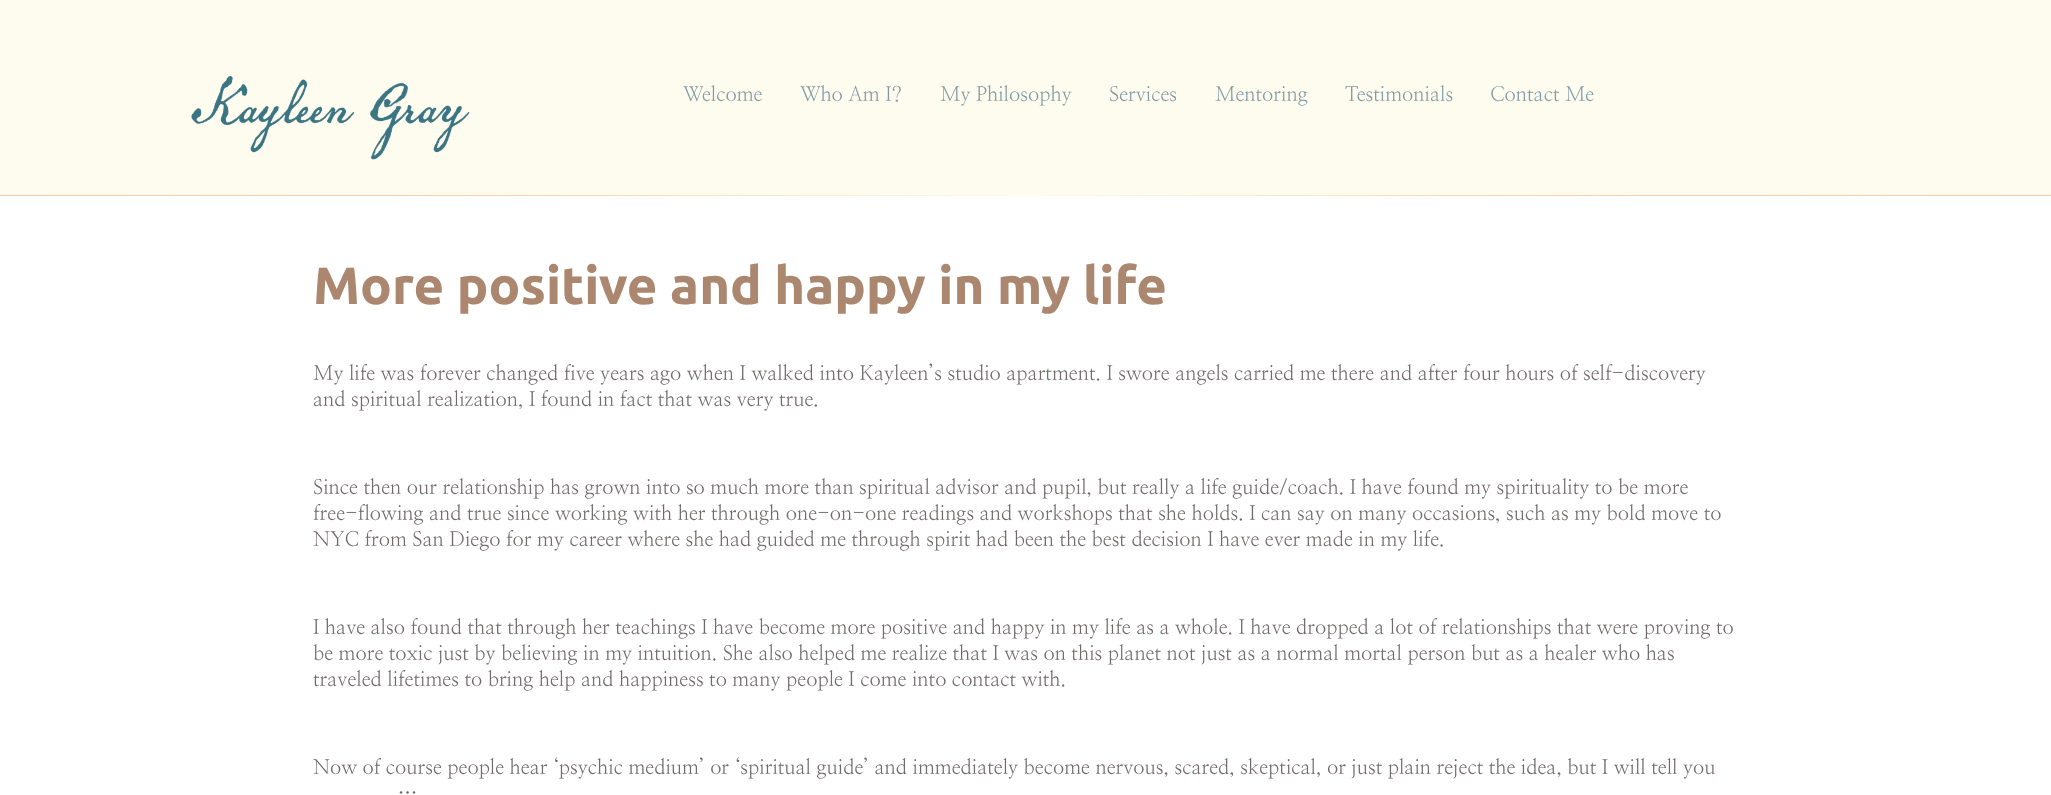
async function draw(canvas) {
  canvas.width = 2051
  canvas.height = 795
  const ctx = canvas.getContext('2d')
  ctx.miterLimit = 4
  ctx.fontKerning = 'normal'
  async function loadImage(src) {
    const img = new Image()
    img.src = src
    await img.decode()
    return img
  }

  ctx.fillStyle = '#fff'
  ctx.fillRect(0, 0, 2051, 795)
  ctx.fillStyle = '#fdfcef'
  ctx.beginPath()
  ctx.roundRect(0, 0, 2051, 196, [0, 0, 2.5, 0])
  ctx.fill()
  ctx.drawImage(await loadImage('image0.png'), 191, 76, 279, 84)
  ctx.font = '20px NanumMyeongjo'
  ctx.fillStyle = '#8199a4'
  ctx.fillText('Welcome', 683, 101)
  ctx.fillText('Who Am I?', 800, 101)
  ctx.fillText('My Philosophy', 940, 101)
  ctx.fillText('Services', 1109, 101)
  ctx.fillText('Mentoring', 1215, 101)
  ctx.fillText('Testimonials', 1345, 101)
  ctx.fillText('Contact Me', 1490, 101)
  ctx.save()
  ctx.beginPath()
  ctx.rect(0, 195, 2051, 3)
  ctx.clip()
  ctx.fillStyle = '#f6a46354'
  ctx.beginPath()
  ctx.moveTo(2051, 196)
  ctx.lineTo(2051, 194)
  ctx.lineTo(1025, 196)
  ctx.lineTo(-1, 194)
  ctx.lineTo(-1, 196)
  ctx.closePath()
  ctx.fill()
  ctx.restore()
  ctx.fillStyle = '#f6a46354'
  ctx.beginPath()
  ctx.moveTo(2051, 196)
  ctx.lineTo(2051, 195)
  ctx.lineTo(1025, 196)
  ctx.lineTo(-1, 195)
  ctx.lineTo(-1, 196)
  ctx.closePath()
  ctx.fill()
  ctx.font = 'bold 52.5px Ubuntu'
  ctx.fillStyle = '#ac8770'
  ctx.fillText('More positive and happy in my life', 313, 304)
  ctx.font = '20px NanumMyeongjo'
  ctx.fillStyle = '#716969'
  ctx.fillText('My life was forever changed five years ago when I walked into Kayleen’s studio apartment. I swore angels carried me there and after four hours of self-discovery', 313, 380)
  ctx.fillText('and spiritual realization, I found in fact that was very true.', 313, 406)
  ctx.fillText('Since then our relationship has grown into so much more than spiritual advisor and pupil, but really a life guide/coach. I have found my spirituality to be more', 313, 494)
  ctx.fillText('free-flowing and true since working with her through one-on-one readings and workshops that she holds. I can say on many occasions, such as my bold move to', 313, 520)
  ctx.fillText('NYC from San Diego for my career where she had guided me through spirit had been the best decision I have ever made in my life.', 313, 546)
  ctx.fillText('I have also found that through her teachings I have become more positive and happy in my life as a whole. I have dropped a lot of relationships that were proving to', 313, 634)
  ctx.fillText('be more toxic just by believing in my intuition. She also helped me realize that I was on this planet not just as a normal mortal person but as a healer who has', 313, 660)
  ctx.fillText('traveled lifetimes to bring help and happiness to many people I come into contact with.', 313, 686)
  ctx.fillText('Now of course people hear ‘psychic medium’ or ‘spiritual guide’ and immediately become nervous, scared, skeptical, or just plain reject the idea, but I will tell you', 313, 774)
  ctx.fillText('…', 398, 800)
}

draw(document.querySelector('canvas'))
